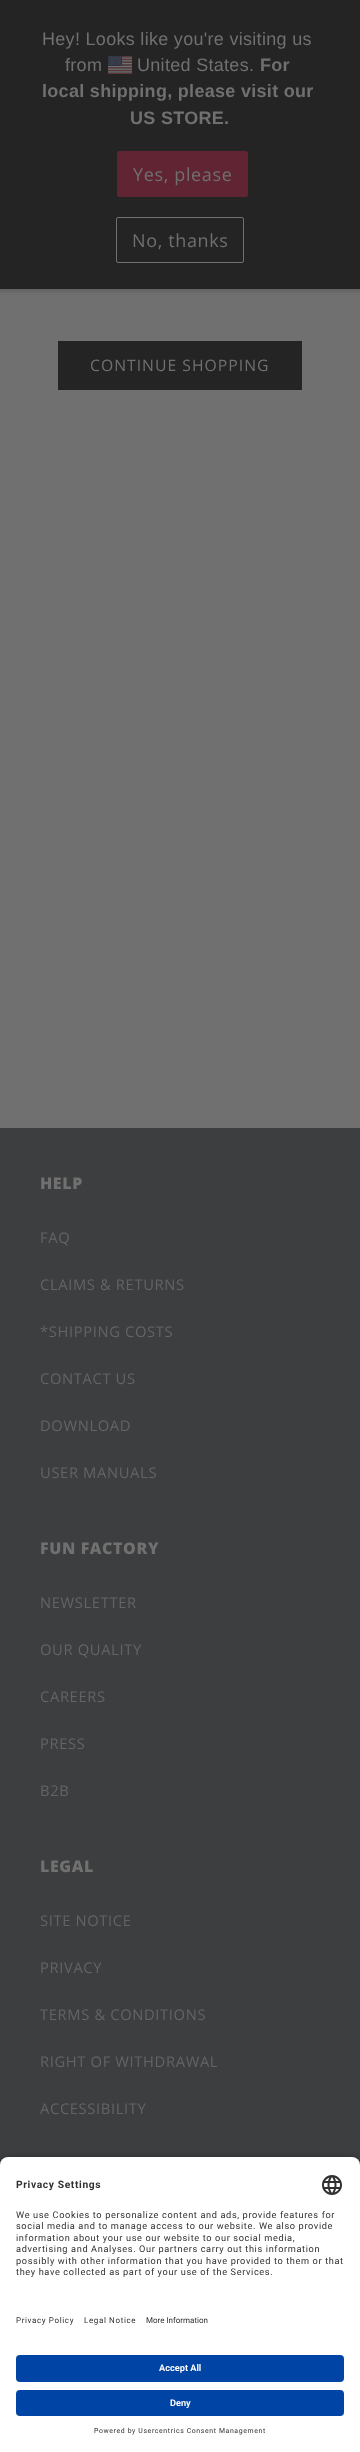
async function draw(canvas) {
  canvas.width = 360
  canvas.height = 2452
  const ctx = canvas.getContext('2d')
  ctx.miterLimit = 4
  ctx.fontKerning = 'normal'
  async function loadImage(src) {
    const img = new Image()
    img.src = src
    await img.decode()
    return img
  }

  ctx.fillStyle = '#707070'
  ctx.fillRect(0, 0, 360, 2452)
  ctx.fillStyle = '#24242426'
  ctx.filter = 'blur(1.5px)'
  ctx.beginPath()
  ctx.rect(-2, -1, 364, 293)
  ctx.fill()
  ctx.filter = 'none'
  ctx.fillStyle = '#242424'
  ctx.fillRect(0, 0, 360, 289)
  ctx.letterSpacing = '0.3px'
  ctx.font = '18px Liberation Sans'
  ctx.fillStyle = '#707070'
  ctx.fillText('Hey! Looks like you\'re visiting us', 42, 45)
  ctx.fillText('from', 65, 71)
  ctx.drawImage(await loadImage('image0.png'), 108, 56, 24, 18)
  ctx.fillText('United States.', 137, 71)
  ctx.font = 'bold 18px Liberation Sans'
  ctx.fillText('For', 260, 71)
  ctx.fillText('local shipping, please visit our', 42, 97)
  ctx.fillText('US STORE.', 130, 124)
  ctx.fillStyle = '#602433'
  ctx.beginPath()
  ctx.roundRect(117.5, 151.5, 130, 45, 1.5)
  ctx.fill()
  ctx.strokeStyle = '#602433'
  ctx.stroke()
  ctx.letterSpacing = '0.63px'
  ctx.font = '18px Open Sans'
  ctx.fillStyle = '#707070'
  ctx.fillText('Yes, please', 133, 181)
  ctx.beginPath()
  ctx.roundRect(116.5, 217.5, 127, 45, 1.5)
  ctx.strokeStyle = '#707070'
  ctx.stroke()
  ctx.fillText('No, thanks', 132, 247)
  ctx.fillStyle = '#242424'
  ctx.fillRect(58, 341, 244, 49)
  ctx.letterSpacing = '1px'
  ctx.font = '15.75px Open Sans'
  ctx.fillStyle = '#707070'
  ctx.fillText('CONTINUE SHOPPING', 90, 371)
  ctx.fillStyle = '#3d3e3f'
  ctx.fillRect(0, 1128, 360, 1037)
  ctx.letterSpacing = '0.6px'
  ctx.font = '800 16px Open Sans'
  ctx.fillStyle = '#707070'
  ctx.fillText('HELP', 40, 1189)
  ctx.letterSpacing = '0.63px'
  ctx.font = '14.75px Open Sans'
  ctx.fillStyle = '#636464'
  ctx.fillText('FAQ', 40, 1243)
  ctx.fillText('CLAIMS & RETURNS', 40, 1290)
  ctx.fillText('*SHIPPING COSTS', 40, 1337)
  ctx.fillText('CONTACT US', 40, 1384)
  ctx.fillText('DOWNLOAD', 40, 1431)
  ctx.fillText('USER MANUALS', 40, 1478)
  ctx.letterSpacing = '0.6px'
  ctx.font = '800 16px Open Sans'
  ctx.fillStyle = '#707070'
  ctx.fillText('FUN FACTORY', 40, 1554)
  ctx.letterSpacing = '0.63px'
  ctx.font = '14.75px Open Sans'
  ctx.fillStyle = '#636464'
  ctx.fillText('NEWSLETTER', 40, 1608)
  ctx.fillText('OUR QUALITY', 40, 1655)
  ctx.fillText('CAREERS', 40, 1702)
  ctx.fillText('PRESS', 40, 1749)
  ctx.fillText('B2B', 40, 1796)
  ctx.letterSpacing = '0.6px'
  ctx.font = '800 16px Open Sans'
  ctx.fillStyle = '#707070'
  ctx.fillText('LEGAL', 40, 1872)
  ctx.letterSpacing = '0.63px'
  ctx.font = '14.75px Open Sans'
  ctx.fillStyle = '#636464'
  ctx.fillText('SITE NOTICE', 40, 1926)
  ctx.fillText('PRIVACY', 40, 1973)
  ctx.fillText('TERMS & CONDITIONS', 40, 2020)
  ctx.fillText('RIGHT OF WITHDRAWAL', 40, 2067)
  ctx.fillText('ACCESSIBILITY', 40, 2114)
  ctx.fillStyle = '#000000cc'
  ctx.filter = 'blur(3.5px)'
  ctx.beginPath()
  ctx.roundRect(0, 2160, 360, 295, 8)
  ctx.fill()
  ctx.filter = 'none'
  ctx.fillStyle = '#fff'
  ctx.beginPath()
  ctx.roundRect(0, 2157, 360, 141, [8, 8, 0, 0])
  ctx.fill()
  ctx.font = 'bold 10.25px Roboto'
  ctx.fillStyle = '#303030'
  ctx.fillText('Privacy Settings', 16, 2188)
  ctx.drawImage(await loadImage('image1.png'), 322, 2175, 20, 20)
  ctx.font = '9.2px Roboto'
  ctx.fillText('We use Cookies to personalize content and ads, provide features for', 16, 2218)
  ctx.fillText('social media and to manage access to our website. We also provide', 16, 2229)
  ctx.fillText('information about your use our website to our social media,', 16, 2241)
  ctx.fillText('advertising and Analyses. Our partners carry out this information', 16, 2252)
  ctx.fillText('possibly with other information that you have provided to them or that', 16, 2264)
  ctx.fillText('they have collected as part of your use of the Services.', 16, 2275)
  ctx.fillStyle = '#fff'
  ctx.fillRect(0, 2298, 360, 154)
  ctx.font = '8px Roboto'
  ctx.fillStyle = '#303030'
  ctx.fillText('Privacy Policy', 16, 2323)
  ctx.fillText('Legal Notice', 84, 2323)
  ctx.letterSpacing = '0px'
  ctx.fillText('More Information', 146, 2323)
  ctx.fillStyle = '#0045a5'
  ctx.beginPath()
  ctx.roundRect(16, 2355, 328, 27, 4)
  ctx.fill()
  ctx.font = 'bold 9.2px Roboto'
  ctx.fillStyle = '#fafafa'
  ctx.fillText('Accept All', 159, 2371)
  ctx.fillStyle = '#0045a5'
  ctx.beginPath()
  ctx.roundRect(16, 2390, 328, 26, 4)
  ctx.fill()
  ctx.fillStyle = '#fafafa'
  ctx.fillText('Deny', 170, 2406)
  ctx.letterSpacing = '0.63px'
  ctx.font = '6.9px Roboto'
  ctx.fillStyle = '#303030'
  ctx.fillText('Powered by Usercentrics Consent Management', 94, 2433)
}

draw(document.querySelector('canvas'))
